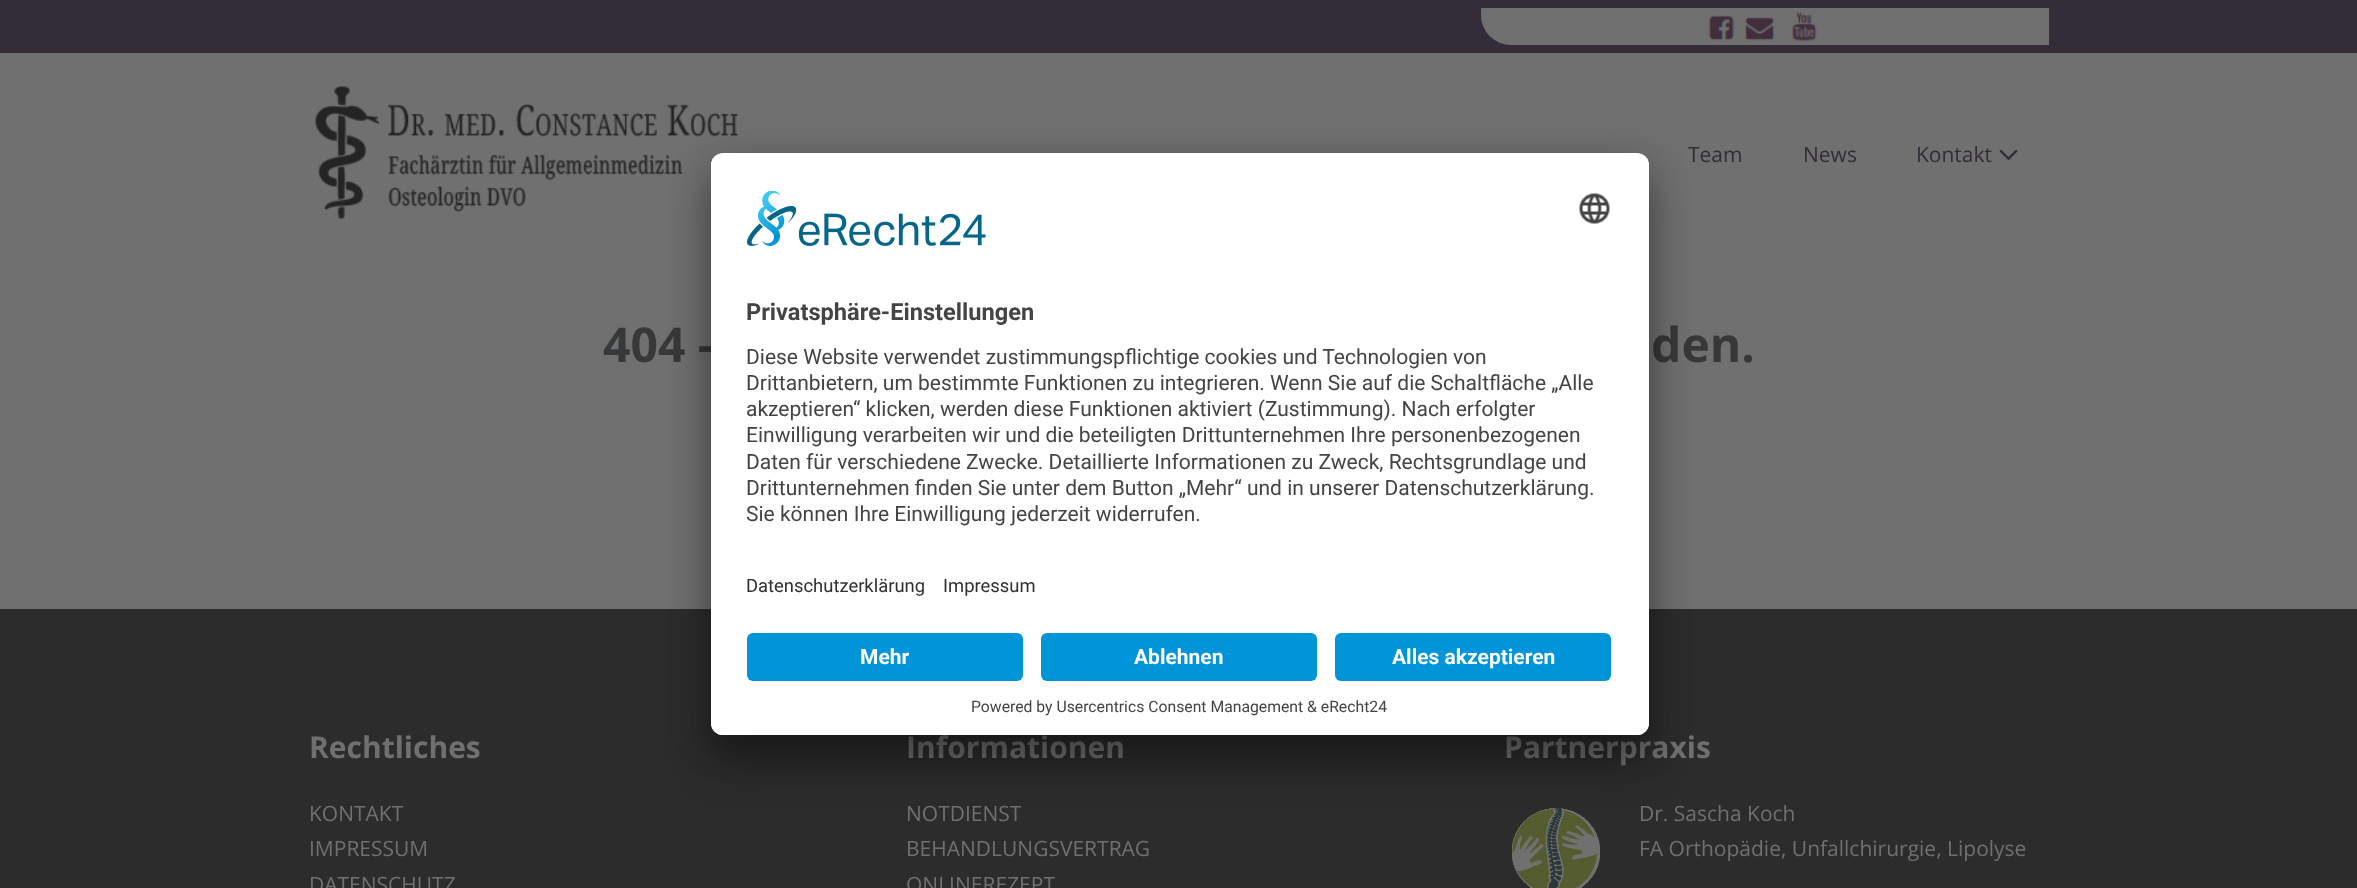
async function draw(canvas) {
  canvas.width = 2357
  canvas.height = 888
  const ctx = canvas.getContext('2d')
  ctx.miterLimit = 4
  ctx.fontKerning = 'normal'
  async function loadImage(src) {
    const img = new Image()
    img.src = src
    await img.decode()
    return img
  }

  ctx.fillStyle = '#707070'
  ctx.fillRect(0, 0, 2357, 888)
  ctx.fillStyle = '#332c39'
  ctx.fillRect(0, 0, 2357, 53)
  ctx.fillStyle = '#707070'
  ctx.beginPath()
  ctx.roundRect(1481, 8, 568, 37, [0, 0, 0, 30])
  ctx.fill()
  ctx.drawImage(await loadImage('image0.png'), 1708, 15, 27, 26)
  ctx.drawImage(await loadImage('image1.png'), 1744, 17, 31, 24)
  ctx.drawImage(await loadImage('image2.png'), 1792, 11, 25, 30)
  ctx.drawImage(await loadImage('image3.png'), 315, 86, 424, 133)
  ctx.font = '21px Open Sans'
  ctx.fillStyle = '#332c39'
  ctx.fillText('Team', 1688, 162)
  ctx.fillText('News', 1803, 162)
  ctx.fillText('Kontakt', 1916, 162)
  ctx.drawImage(await loadImage('image4.png'), 1999, 149, 19, 11)
  ctx.font = 'bold 48px Open Sans'
  ctx.fillStyle = '#36383a'
  ctx.fillText('404 -', 603, 362)
  ctx.fillText('den.', 1651, 362)
  ctx.fillStyle = '#2c2c2c'
  ctx.fillRect(0, 609, 2357, 279)
  ctx.font = 'bold 30px Open Sans'
  ctx.fillStyle = '#707070'
  ctx.fillText('Rechtliches', 309, 758)
  ctx.font = '21px Open Sans'
  ctx.fillText('KONTAKT', 309, 821)
  ctx.fillText('IMPRESSUM', 309, 856)
  ctx.fillText('DATENSCHUTZ', 309, 892)
  ctx.font = 'bold 30px Open Sans'
  ctx.fillText('Informationen', 906, 758)
  ctx.font = '21px Open Sans'
  ctx.fillText('NOTDIENST', 906, 821)
  ctx.fillText('BEHANDLUNGSVERTRAG', 906, 856)
  ctx.fillText('ONLINEREZEPT', 906, 892)
  ctx.font = 'bold 30px Open Sans'
  ctx.fillText('Partnerpraxis', 1504, 758)
  ctx.drawImage(await loadImage('image5.png'), 1512, 808, 88, 80)
  ctx.font = '21px Open Sans'
  ctx.fillText('Dr. Sascha Koch', 1639, 821)
  ctx.fillText('FA Orthopädie, Unfallchirurgie, Lipolyse', 1639, 856)
  ctx.fillStyle = '#0000004d'
  ctx.filter = 'blur(21px)'
  ctx.beginPath()
  ctx.roundRect(711, 183, 938, 582, 12)
  ctx.fill()
  ctx.filter = 'none'
  ctx.fillStyle = '#00000038'
  ctx.filter = 'blur(19.5px)'
  ctx.beginPath()
  ctx.roundRect(711, 161, 938, 582, 12)
  ctx.fill()
  ctx.filter = 'none'
  ctx.fillStyle = '#fff'
  ctx.beginPath()
  ctx.roundRect(711, 153, 938, 582, 12)
  ctx.fill()
  ctx.save()
  ctx.beginPath()
  ctx.roundRect(711, 153, 938, 582, 12)
  ctx.clip()
  ctx.beginPath()
  ctx.roundRect(711, 153, 938, 468, [12, 12, 0, 0])
  ctx.clip()
  ctx.fillRect(711, 155, 938, 466)
  ctx.restore()
  ctx.drawImage(await loadImage('image6.png'), 747, 191, 239, 55)
  ctx.drawImage(await loadImage('image7.png'), 1579, 193, 31, 31)
  ctx.font = 'bold 23.6px Roboto'
  ctx.fillStyle = '#444'
  ctx.fillText('Privatsphäre-Einstellungen', 746, 320)
  ctx.font = '21px Roboto'
  ctx.fillText('Diese Website verwendet zustimmungspflichtige cookies und Technologien von', 746, 364)
  ctx.fillText('Drittanbietern, um bestimmte Funktionen zu integrieren. Wenn Sie auf die Schaltfläche „Alle', 746, 390)
  ctx.fillText('akzeptieren“ klicken, werden diese Funktionen aktiviert (Zustimmung). Nach erfolgter', 746, 416)
  ctx.fillText('Einwilligung verarbeiten wir und die beteiligten Drittunternehmen Ihre personenbezogenen', 746, 442)
  ctx.fillText('Daten für verschiedene Zwecke. Detaillierte Informationen zu Zweck, Rechtsgrundlage und', 746, 469)
  ctx.fillText('Drittunternehmen finden Sie unter dem Button „Mehr“ und in unserer Datenschutzerklärung.', 746, 495)
  ctx.fillText('Sie können Ihre Einwilligung jederzeit widerrufen.', 746, 521)
  ctx.font = '18.4px Roboto'
  ctx.fillStyle = '#303030'
  ctx.fillText('Datenschutzerklärung', 746, 592)
  ctx.fillText('Impressum', 943, 592)
  ctx.fillStyle = '#fff'
  ctx.beginPath()
  ctx.roundRect(711, 621, 938, 114, [0, 0, 12, 12])
  ctx.fill()
  ctx.fillStyle = '#0094d8'
  ctx.beginPath()
  ctx.roundRect(747, 633, 276, 48, 6)
  ctx.fill()
  ctx.font = 'bold 21px Roboto'
  ctx.fillStyle = '#fff'
  ctx.fillText('Mehr', 860, 664)
  ctx.fillStyle = '#0094d8'
  ctx.beginPath()
  ctx.roundRect(1041, 633, 276, 48, 6)
  ctx.fill()
  ctx.fillStyle = '#fff'
  ctx.fillText('Ablehnen', 1134, 664)
  ctx.fillStyle = '#0094d8'
  ctx.beginPath()
  ctx.roundRect(1335, 633, 276, 48, 6)
  ctx.fill()
  ctx.fillStyle = '#fff'
  ctx.fillText('Alles akzeptieren', 1392, 664)
  ctx.font = '15.75px Roboto'
  ctx.fillStyle = '#444'
  ctx.fillText('Powered by Usercentrics Consent Management & eRecht24', 971, 712)
}

draw(document.querySelector('canvas'))
